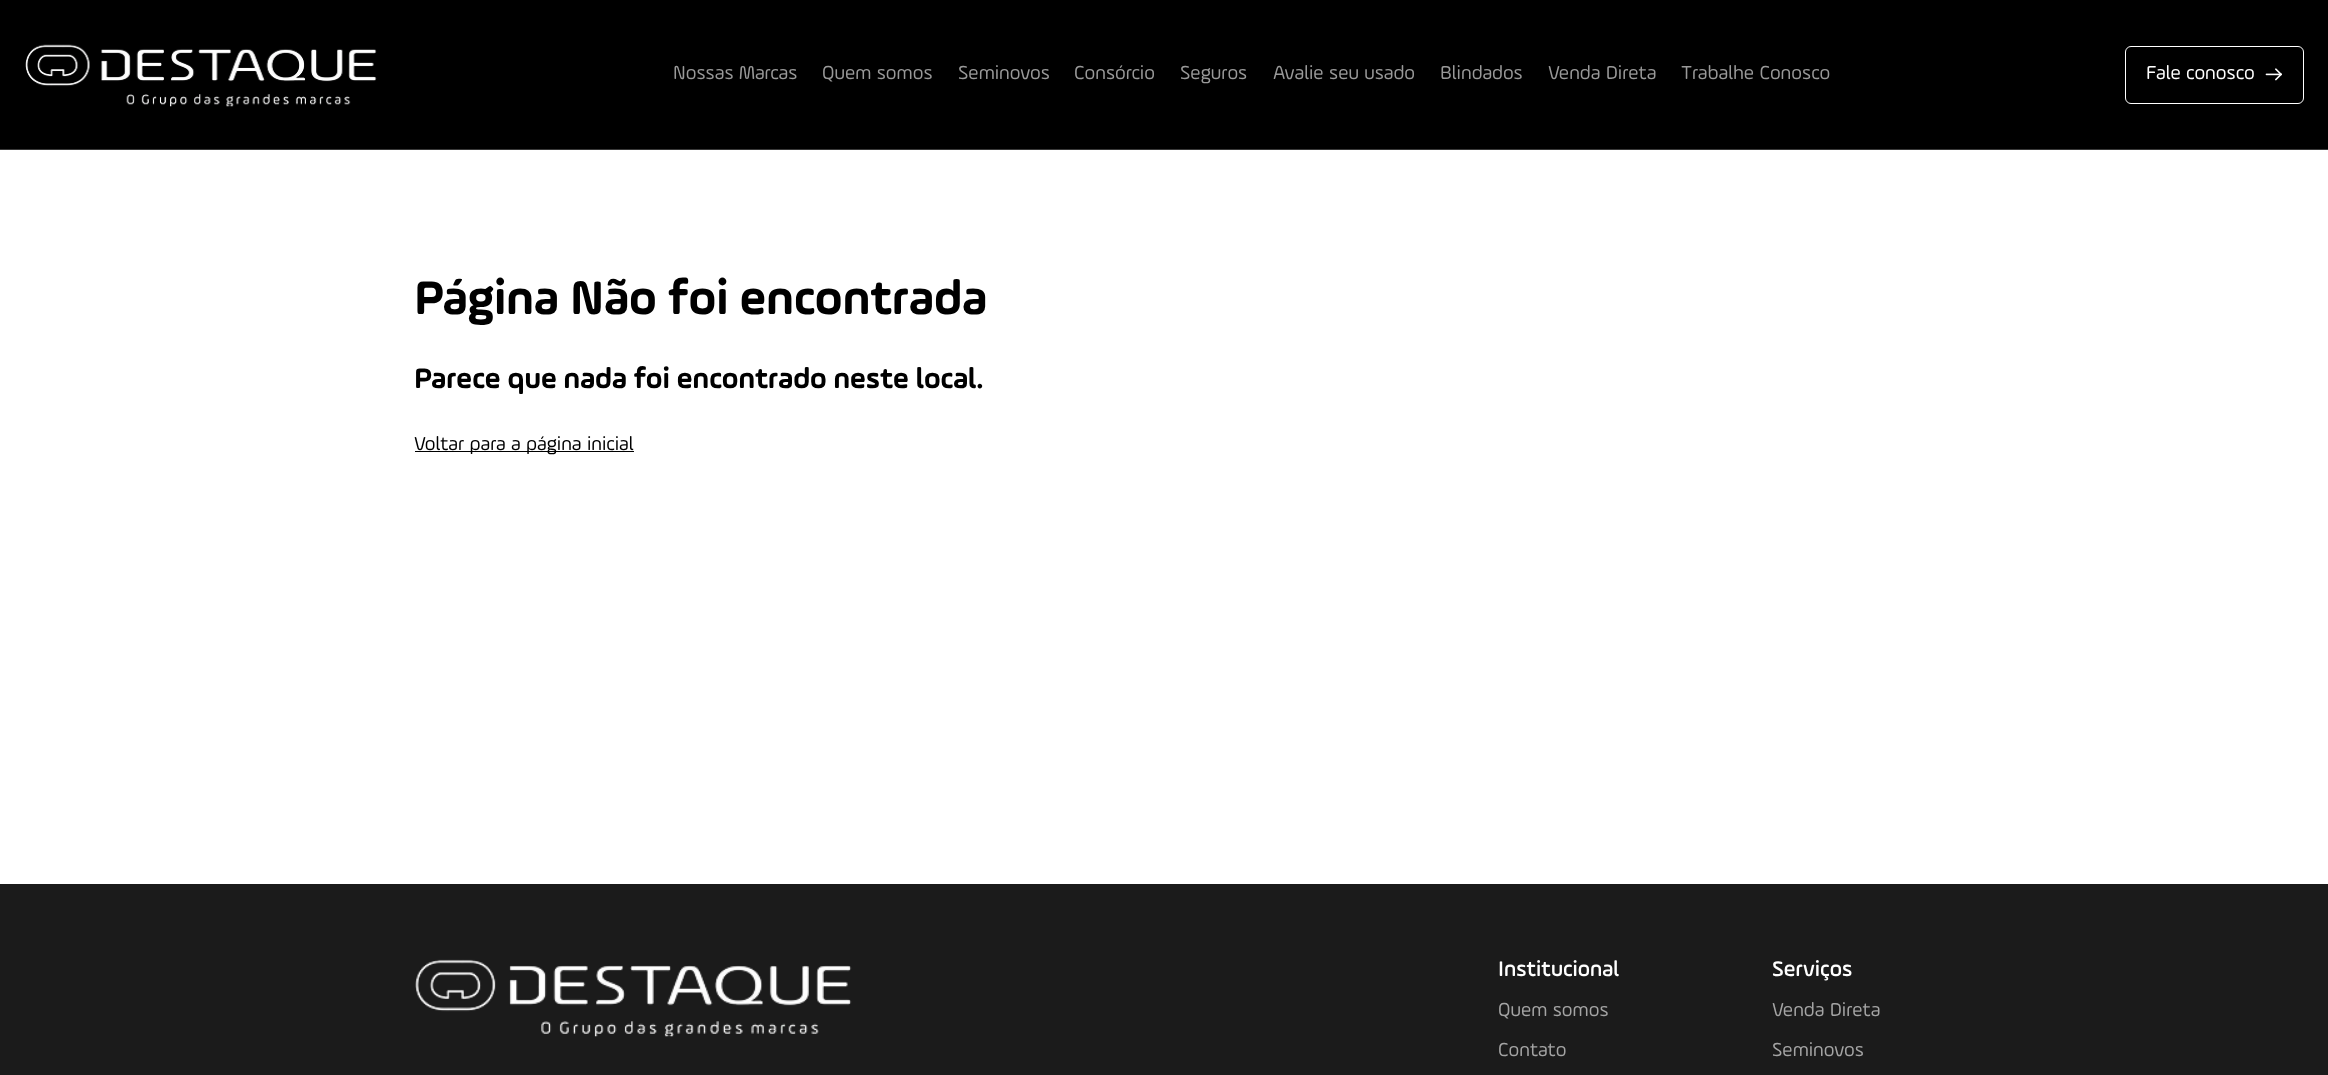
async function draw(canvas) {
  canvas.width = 2328
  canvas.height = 1075
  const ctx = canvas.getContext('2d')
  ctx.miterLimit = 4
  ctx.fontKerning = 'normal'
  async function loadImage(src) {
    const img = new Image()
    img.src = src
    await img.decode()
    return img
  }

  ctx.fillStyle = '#fff'
  ctx.fillRect(0, 0, 2328, 1075)
  ctx.fillStyle = '#000'
  ctx.fillRect(0, 0, 2328, 149)
  ctx.fillStyle = '#393939'
  ctx.fillRect(0, 149, 2328, 1)
  ctx.drawImage(await loadImage('image0.png'), 25, 44, 352, 63)
  ctx.font = '20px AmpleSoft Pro'
  ctx.fillStyle = '#999'
  ctx.fillText('Nossas Marcas', 673, 79)
  ctx.fillText('Quem somos', 822, 79)
  ctx.fillText('Seminovos', 958, 79)
  ctx.fillText('Consórcio', 1074, 79)
  ctx.fillText('Seguros', 1180, 79)
  ctx.fillText('Avalie seu usado', 1273, 79)
  ctx.fillText('Blindados', 1440, 79)
  ctx.fillText('Venda Direta', 1548, 79)
  ctx.fillText('Trabalhe Conosco', 1681, 79)
  ctx.beginPath()
  ctx.roundRect(2125.5, 46.5, 178, 57, 5.5)
  ctx.strokeStyle = '#fff'
  ctx.stroke()
  ctx.fillStyle = '#fff'
  ctx.fillText('Fale conosco', 2146, 79)
  ctx.drawImage(await loadImage('image1.png'), 2265, 68, 17, 13)
  ctx.font = 'bold 50px AmpleSoft Pro'
  ctx.fillStyle = '#000'
  ctx.fillText('Página Não foi encontrada', 414, 314)
  ctx.font = 'bold 30px AmpleSoft Pro'
  ctx.fillText('Parece que nada foi encontrado neste local.', 414, 388)
  ctx.fillRect(415, 451, 219, 1)
  ctx.font = '20px AmpleSoft Pro'
  ctx.fillText('Voltar para a página inicial', 414, 450)
  ctx.fillStyle = '#1b1b1b'
  ctx.fillRect(0, 884, 2328, 191)
  ctx.drawImage(await loadImage('image2.png'), 415, 959, 437, 78)
  ctx.font = '500 22.5px AmpleSoft Pro'
  ctx.fillStyle = '#fff'
  ctx.fillText('Institucional', 1498, 976)
  ctx.font = '20px AmpleSoft Pro'
  ctx.fillStyle = '#a4a4a4'
  ctx.fillText('Quem somos', 1498, 1016)
  ctx.fillText('Contato', 1498, 1056)
  ctx.font = '500 22.5px AmpleSoft Pro'
  ctx.fillStyle = '#fff'
  ctx.fillText('Serviços', 1772, 976)
  ctx.font = '20px AmpleSoft Pro'
  ctx.fillStyle = '#a4a4a4'
  ctx.fillText('Venda Direta', 1772, 1016)
  ctx.fillText('Seminovos', 1772, 1056)
}

draw(document.querySelector('canvas'))
